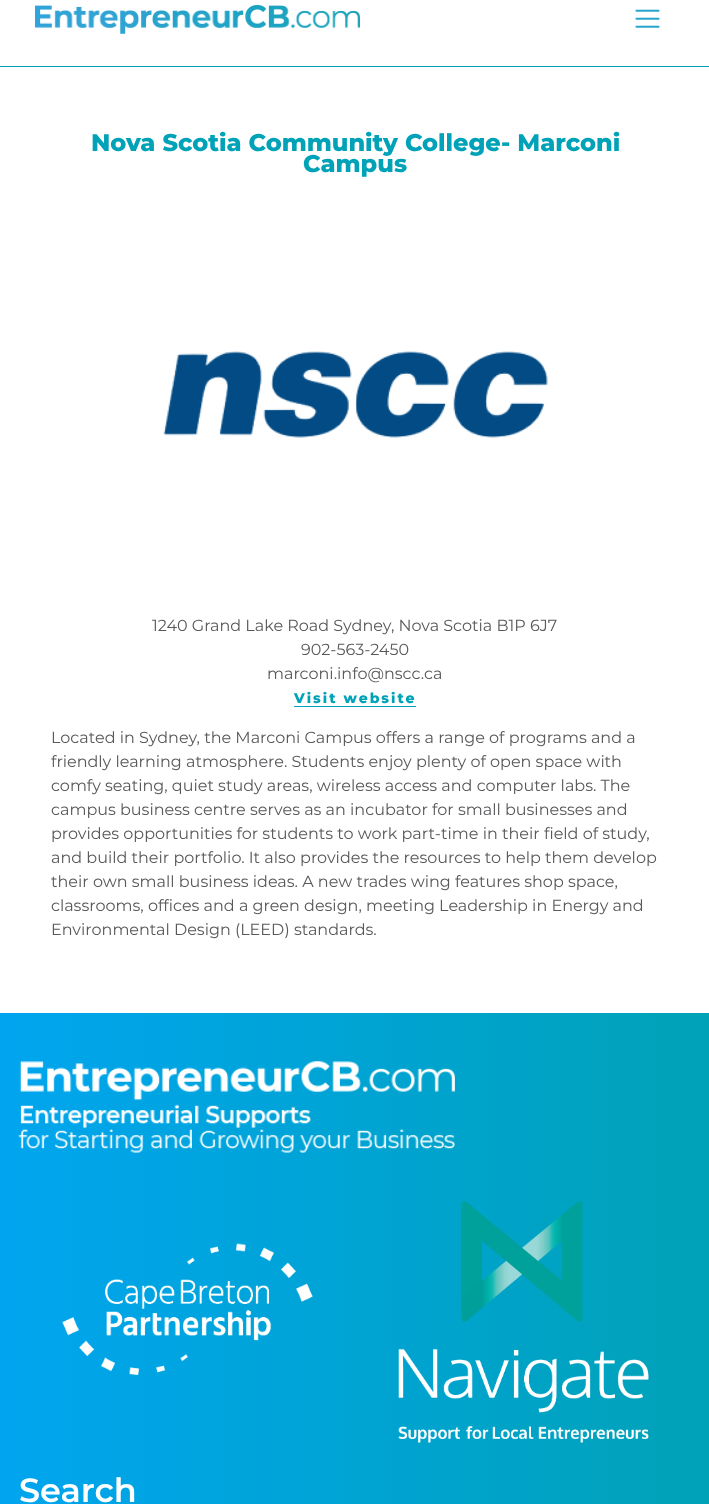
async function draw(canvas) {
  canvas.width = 709
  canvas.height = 1504
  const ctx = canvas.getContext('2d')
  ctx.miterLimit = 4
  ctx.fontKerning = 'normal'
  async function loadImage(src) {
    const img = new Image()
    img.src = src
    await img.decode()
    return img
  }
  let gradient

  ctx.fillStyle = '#fff'
  ctx.fillRect(0, 0, 709, 1504)
  ctx.fillStyle = '#00a2b8'
  ctx.fillRect(0, 66, 709, 1)
  ctx.drawImage(await loadImage('image0.png'), 35, 5, 325, 29)
  ctx.drawImage(await loadImage('image1.png'), 635, 9, 25, 19)
  ctx.font = '800 24px Montserrat'
  ctx.fillText('Nova Scotia Community College- Marconi', 91, 151)
  ctx.fillText('Campus', 303, 172)
  ctx.drawImage(await loadImage('image2.png'), 163, 351, 385, 87)
  ctx.font = '16px Montserrat'
  ctx.fillStyle = '#58595b'
  ctx.fillText('1240 Grand Lake Road Sydney, Nova Scotia B1P 6J7', 152, 631)
  ctx.fillText('902-563-2450', 301, 655)
  ctx.fillText('marconi.info@nscc.ca', 267, 679)
  ctx.letterSpacing = '2px'
  ctx.font = '800 14px Montserrat'
  ctx.fillStyle = '#00a2b8'
  ctx.fillText('Visit website', 294, 703)
  ctx.fillStyle = '#00a2bb'
  ctx.fillRect(294, 706, 122, 1)
  ctx.letterSpacing = '0px'
  ctx.font = '16px Montserrat'
  ctx.fillStyle = '#58595b'
  ctx.fillText('Located in Sydney, the Marconi Campus offers a range of programs and a', 51, 743)
  ctx.fillText('friendly learning atmosphere. Students enjoy plenty of open space with', 51, 767)
  ctx.fillText('comfy seating, quiet study areas, wireless access and computer labs. The', 51, 791)
  ctx.fillText('campus business centre serves as an incubator for small businesses and', 51, 815)
  ctx.fillText('provides opportunities for students to work part-time in their field of study,', 51, 839)
  ctx.fillText('and build their portfolio. It also provides the resources to help them develop', 51, 863)
  ctx.fillText('their own small business ideas. A new trades wing features shop space,', 51, 887)
  ctx.fillText('classrooms, offices and a green design, meeting Leadership in Energy and', 51, 911)
  ctx.fillText('Environmental Design (LEED) standards.', 51, 935)
  gradient = ctx.createLinearGradient(0, 1388, 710, 1388)
  gradient.addColorStop(0, '#00a5ef')
  gradient.addColorStop(1, '#00a2b7')
  ctx.fillStyle = gradient
  ctx.fillRect(0, 1013, 709, 491)
  ctx.drawImage(await loadImage('image3.png'), 18, 1061, 437, 92)
  ctx.drawImage(await loadImage('image4.png'), 62, 1243, 251, 132)
  ctx.drawImage(await loadImage('image5.png'), 398, 1201, 251, 242)
  ctx.font = '600 33.5px Montserrat'
  ctx.fillStyle = '#fff'
  ctx.fillText('Search', 19, 1502)
}

draw(document.querySelector('canvas'))
